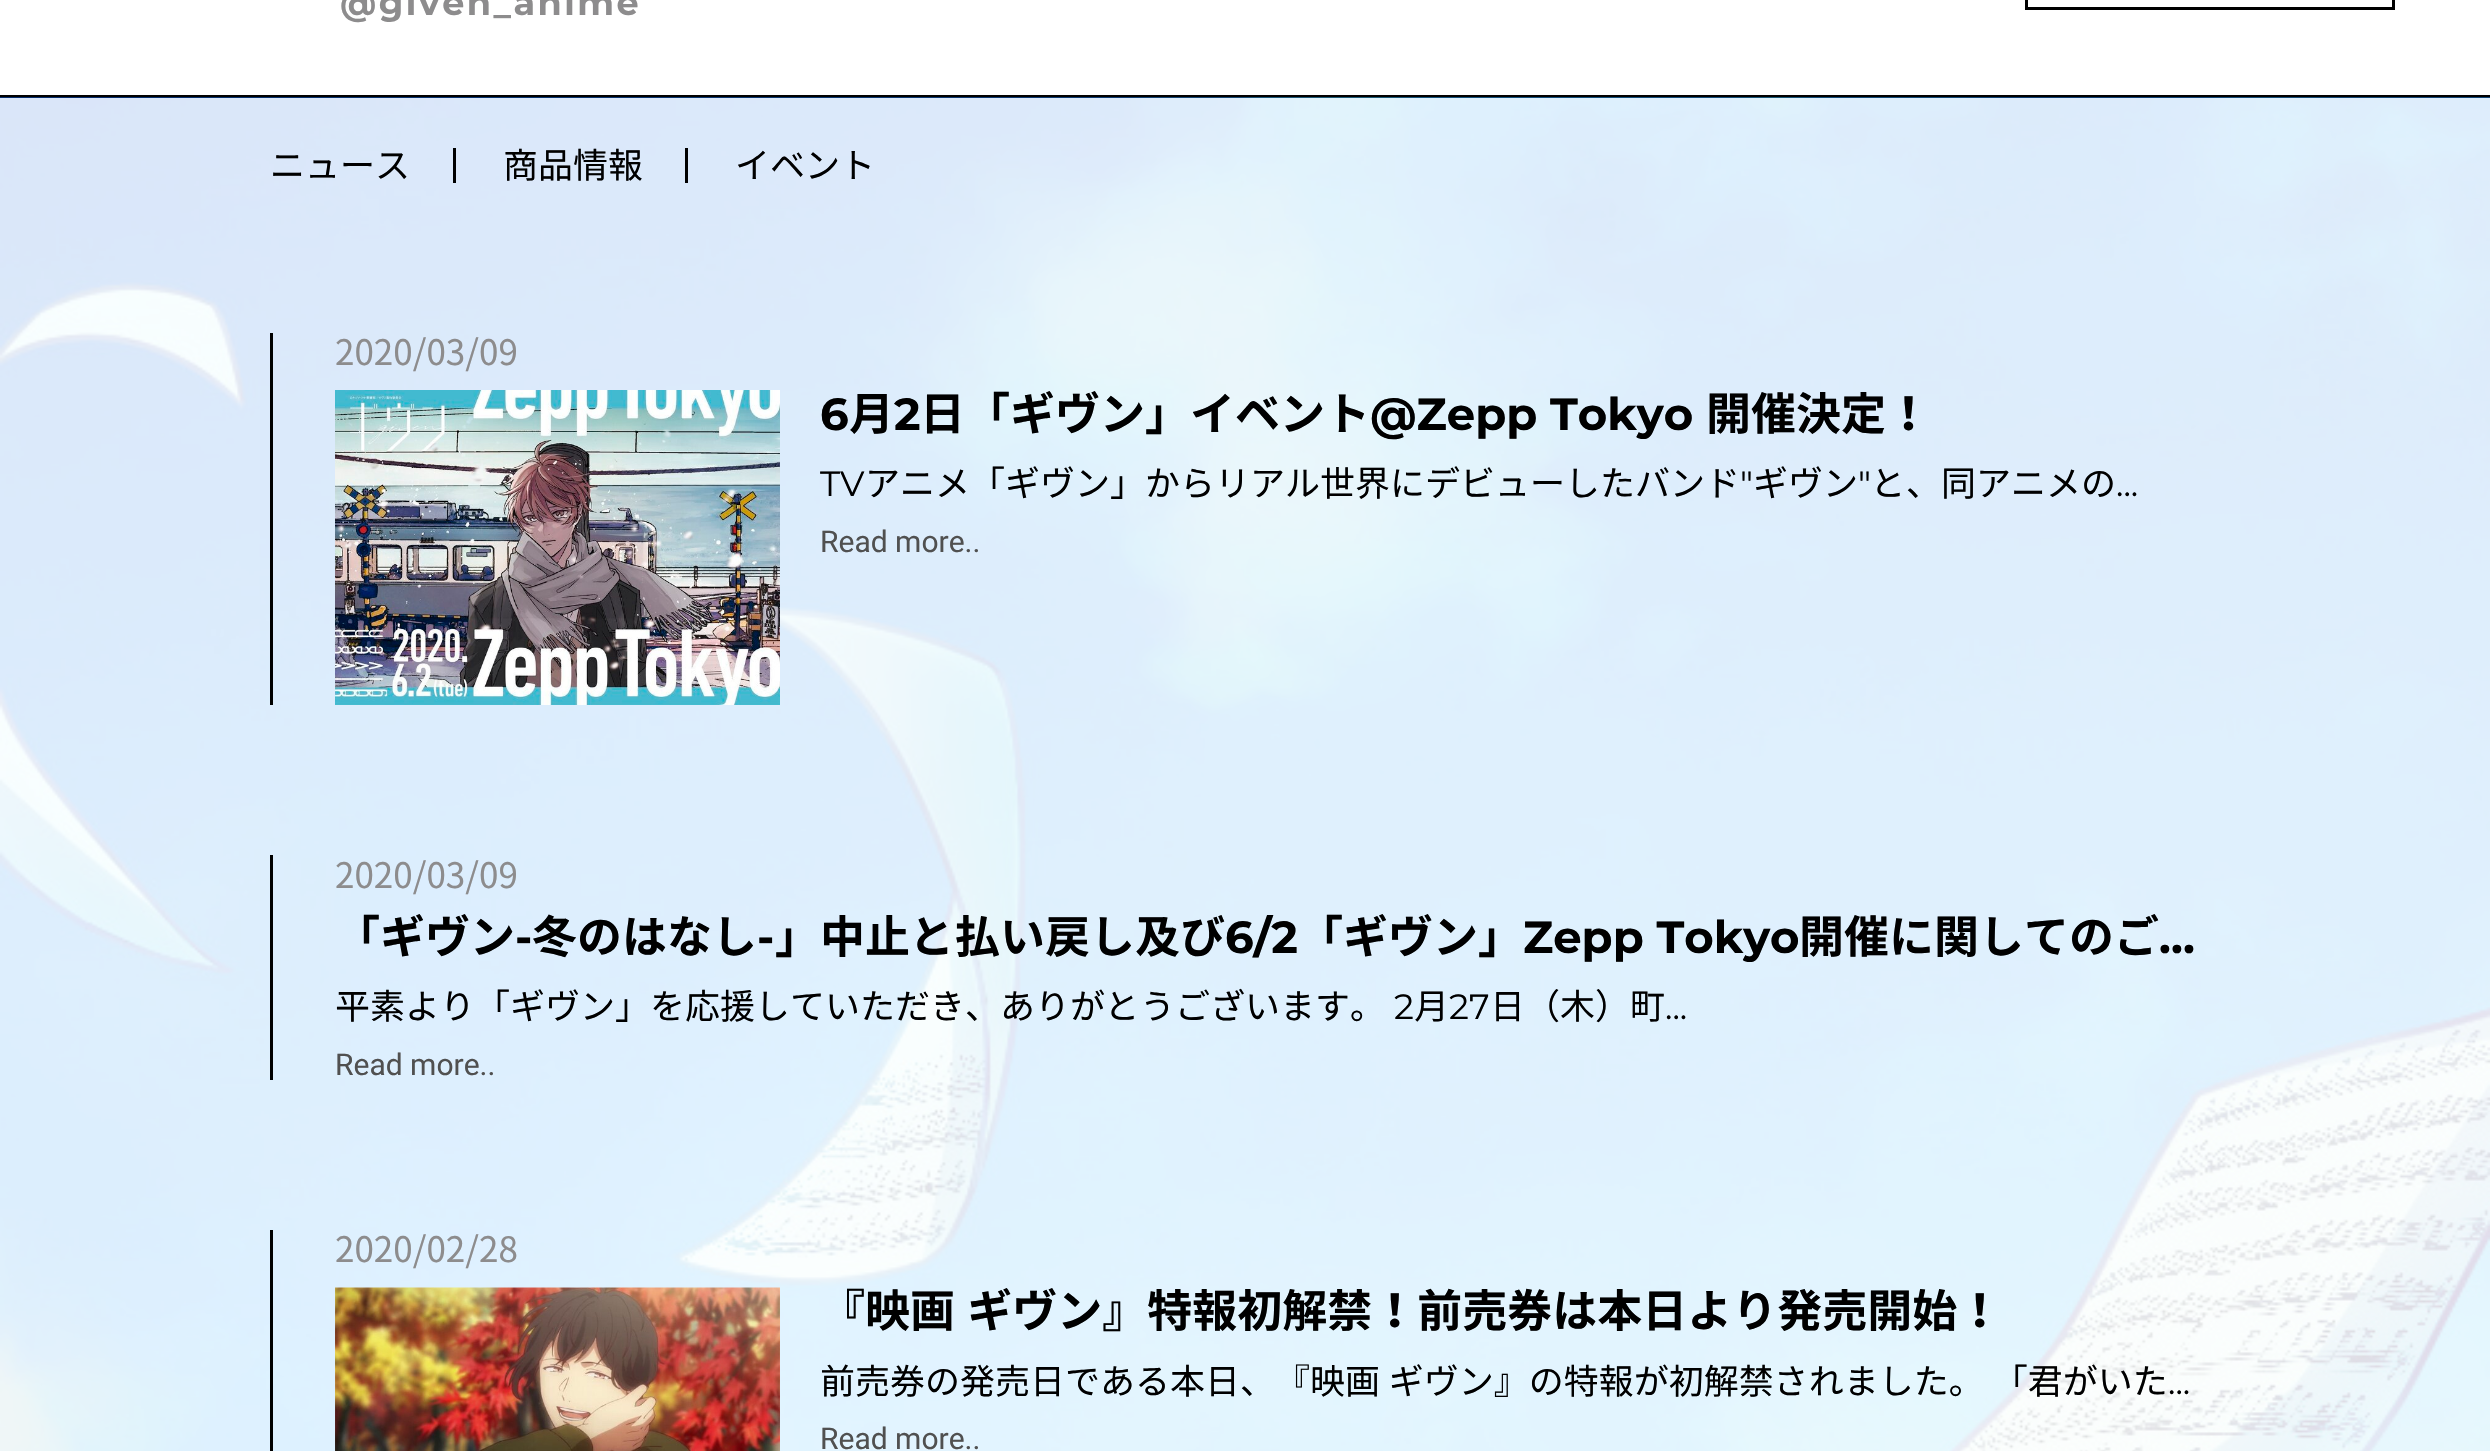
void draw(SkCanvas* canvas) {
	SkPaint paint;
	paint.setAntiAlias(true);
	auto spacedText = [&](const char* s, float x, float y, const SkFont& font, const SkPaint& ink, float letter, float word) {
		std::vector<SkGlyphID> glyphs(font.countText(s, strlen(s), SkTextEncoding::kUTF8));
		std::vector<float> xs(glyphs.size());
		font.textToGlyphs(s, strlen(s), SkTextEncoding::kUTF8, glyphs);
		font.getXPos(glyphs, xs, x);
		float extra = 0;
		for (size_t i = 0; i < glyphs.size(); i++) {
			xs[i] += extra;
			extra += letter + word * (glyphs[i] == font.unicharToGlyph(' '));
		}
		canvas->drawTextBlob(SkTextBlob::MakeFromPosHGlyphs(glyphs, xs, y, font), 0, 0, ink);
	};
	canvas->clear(0xffffffff);
	paint.setColor(0xff000000);
	canvas->drawRect(SkRect::MakeXYWH(0, 95, 2490, 3), paint);
	SkFont f1(fontMgr->matchFamilyStyle("Montserrat", SkFontStyle::Bold()), 35);
	f1.setSubpixel(true);
	paint.setColor(0xff8d8c8d);
	spacedText("@given_anime", 340, 15, f1, paint, 2.5, 0);
	paint.setStroke(true);
	paint.setStrokeWidth(3);
	paint.setColor(0xff000000);
	canvas->drawRect(SkRect::MakeXYWH(2026.5, -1.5, 367, 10), paint);
	canvas->drawImageRect(SkImages::DeferredFromEncodedData(SkData::MakeFromFileName("img1.png")), SkRect::MakeXYWH(0, 97, 2490, 1354), SkSamplingOptions());
	SkFont f2(fontMgr->matchFamilyStyle("Noto Sans JP", SkFontStyle::Normal()), 35);
	f2.setSubpixel(true);
	paint.setStroke(false);
	canvas->drawString("ニュース", 270, 178, f2, paint);
	canvas->drawRect(SkRect::MakeXYWH(453, 148, 3, 35), paint);
	canvas->drawString("商品情報", 503, 178, f2, paint);
	canvas->drawRect(SkRect::MakeXYWH(685, 148, 3, 35), paint);
	canvas->drawString("イベント", 735, 178, f2, paint);
	canvas->drawRect(SkRect::MakeXYWH(270, 333, 3, 372), paint);
	paint.setColor(0xff8d8c8d);
	canvas->drawString("2020/03/09", 335, 365, f2, paint);
	canvas->drawImageRect(SkImages::DeferredFromEncodedData(SkData::MakeFromFileName("img2.png")), SkRect::MakeXYWH(335, 390, 445, 315), SkSamplingOptions());
	SkFont f3(fontMgr->matchFamilyStyle("Montserrat", SkFontStyle::Bold()), 45);
	f3.setSubpixel(true);
	paint.setColor(0xff000000);
	canvas->drawString("6", 820, 430, f3, paint);
	SkFont f4(fontMgr->matchFamilyStyle("Noto Sans JP", SkFontStyle::Bold()), 45);
	f4.setSubpixel(true);
	canvas->drawString("月", 849, 430, f4, paint);
	canvas->drawString("2", 894, 430, f3, paint);
	canvas->drawString("日「ギヴン」イベント", 920, 430, f4, paint);
	canvas->drawString("@Zepp Tokyo", 1370, 430, f3, paint);
	canvas->drawString("開催決定！", 1706, 430, f4, paint);
	SkFont f5(fontMgr->matchFamilyStyle("Montserrat", SkFontStyle::Normal()), 35);
	f5.setSubpixel(true);
	canvas->drawString("TV", 820, 496, f5, paint);
	canvas->drawString("アニメ「ギヴン」からリアル世界にデビューしたバンド", 865, 496, f2, paint);
	canvas->drawString("\"", 1740, 496, f5, paint);
	canvas->drawString("ギヴン", 1753, 496, f2, paint);
	canvas->drawString("\"", 1858, 496, f5, paint);
	canvas->drawString("と、同アニメの", 1871, 496, f2, paint);
	canvas->drawString("...", 2116, 496, f5, paint);
	SkFont f6(fontMgr->matchFamilyStyle("Roboto", SkFontStyle::Normal()), 30);
	f6.setSubpixel(true);
	paint.setColor(0xff505050);
	canvas->drawString("Read more..", 820, 552, f6, paint);
	paint.setColor(0xff000000);
	canvas->drawRect(SkRect::MakeXYWH(270, 855, 3, 225), paint);
	paint.setColor(0xff8d8c8d);
	canvas->drawString("2020/03/09", 335, 888, f2, paint);
	paint.setColor(0xff000000);
	canvas->drawString("「ギヴン", 335, 953, f4, paint);
	canvas->drawString("-", 515, 953, f3, paint);
	canvas->drawString("冬のはなし", 532, 953, f4, paint);
	canvas->drawString("-", 757, 953, f3, paint);
	canvas->drawString("」中止と払い戻し及び", 775, 953, f4, paint);
	canvas->drawString("6/2", 1225, 953, f3, paint);
	canvas->drawString("「ギヴン」", 1298, 953, f4, paint);
	canvas->drawString("Zepp Tokyo", 1523, 953, f3, paint);
	canvas->drawString("開催に関してのご", 1799, 953, f4, paint);
	canvas->drawString("…", 2159, 953, f3, paint);
	canvas->drawString("平素より「ギヴン」を応援していただき、ありがとうございます。", 335, 1019, f2, paint);
	canvas->drawString("2", 1394, 1019, f5, paint);
	canvas->drawString("月", 1414, 1019, f2, paint);
	canvas->drawString("27", 1449, 1019, f5, paint);
	canvas->drawString("日（木）町", 1490, 1019, f2, paint);
	canvas->drawString("...", 1665, 1019, f5, paint);
	paint.setColor(0xff505050);
	canvas->drawString("Read more..", 335, 1075, f6, paint);
	paint.setColor(0xff000000);
	canvas->drawRect(SkRect::MakeXYWH(270, 1230, 3, 221), paint);
	paint.setColor(0xff8d8c8d);
	canvas->drawString("2020/02/28", 335, 1262, f2, paint);
	canvas->drawImageRect(SkImages::DeferredFromEncodedData(SkData::MakeFromFileName("img3.png")), SkRect::MakeXYWH(335, 1287, 445, 164), SkSamplingOptions());
	paint.setColor(0xff000000);
	spacedText("『映画 ギヴン』特報初解禁！前売券は本日より発売開始！", 820, 1327, f4, paint, 0, 2);
	spacedText("前売券の発売日である本日、『映画 ギヴン』の特報が初解禁されました。 「君がいた", 820, 1394, f2, paint, 0, 1);
	canvas->drawString("...", 2168, 1394, f5, paint);
	paint.setColor(0xff505050);
	canvas->drawString("Read more..", 820, 1449, f6, paint);
}
